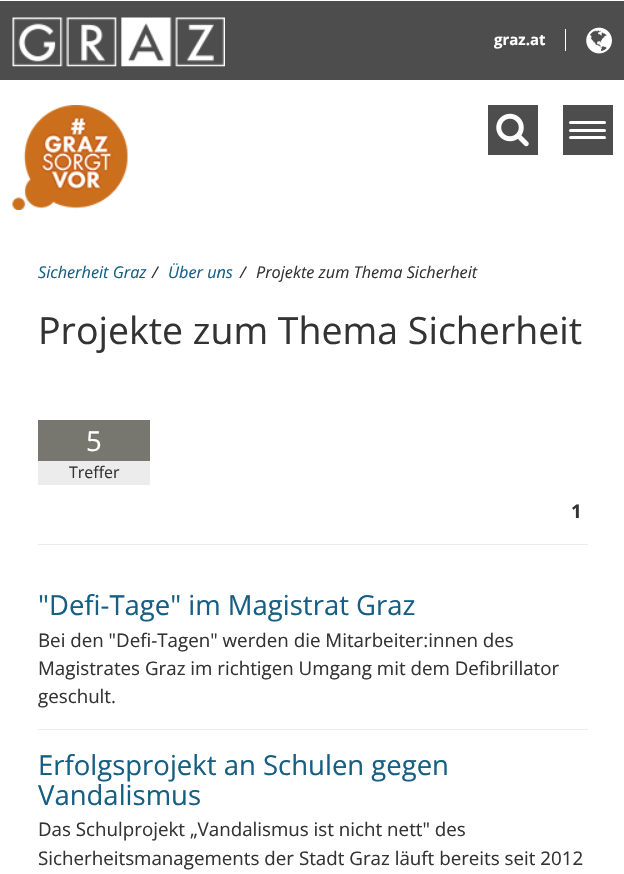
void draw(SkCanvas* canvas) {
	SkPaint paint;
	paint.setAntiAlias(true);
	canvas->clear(0xffffffff);
	paint.setColor(0xff4d4d4d);
	canvas->drawRect(SkRect::MakeXYWH(0, 1, 624, 79), paint);
	canvas->drawImageRect(SkImages::DeferredFromEncodedData(SkData::MakeFromFileName("img1.png")), SkRect::MakeXYWH(12, 17, 213, 50), SkSamplingOptions());
	paint.setColor(0xffffffff);
	canvas->drawRect(SkRect::MakeXYWH(565, 29, 1, 22), paint);
	SkFont f1(fontMgr->matchFamilyStyle("Open Sans", SkFontStyle::Bold()), 15);
	f1.setSubpixel(true);
	canvas->drawString("graz.at", 494, 45, f1, paint);
	canvas->drawImageRect(SkImages::DeferredFromEncodedData(SkData::MakeFromFileName("img2.png")), SkRect::MakeXYWH(586, 27, 26, 27), SkSamplingOptions());
	canvas->drawImageRect(SkImages::DeferredFromEncodedData(SkData::MakeFromFileName("img3.png")), SkRect::MakeXYWH(12, 105, 116, 105), SkSamplingOptions());
	paint.setColor(0xff4d4d4d);
	canvas->drawRect(SkRect::MakeXYWH(488, 105, 50, 50), paint);
	canvas->drawImageRect(SkImages::DeferredFromEncodedData(SkData::MakeFromFileName("img4.png")), SkRect::MakeXYWH(496, 113, 33, 34), SkSamplingOptions());
	canvas->drawRect(SkRect::MakeXYWH(563, 105, 50, 50), paint);
	paint.setColor(0xffffffff);
	canvas->drawRoundRect(SkRect::MakeXYWH(569, 121, 37, 3), 1.5, 1.5, paint);
	canvas->drawRoundRect(SkRect::MakeXYWH(569, 129, 37, 3), 1.5, 1.5, paint);
	canvas->drawRoundRect(SkRect::MakeXYWH(569, 136, 37, 3), 1.5, 1.5, paint);
	SkFont f2(fontMgr->matchFamilyStyle("Open Sans", SkFontStyle::Italic()), 16.25);
	f2.setSubpixel(true);
	paint.setColor(0xff165f83);
	canvas->drawString("Sicherheit Graz", 38, 278, f2, paint);
	paint.setColor(0xff333333);
	canvas->drawString("/", 152, 278, f2, paint);
	paint.setColor(0xff165f83);
	canvas->drawString("Über uns", 168, 278, f2, paint);
	paint.setColor(0xff333333);
	canvas->drawString("/", 240, 278, f2, paint);
	canvas->drawString("Projekte zum Thema Sicherheit", 256, 278, f2, paint);
	SkFont f3(fontMgr->matchFamilyStyle("Open Sans", SkFontStyle::Normal()), 37.5);
	f3.setSubpixel(true);
	canvas->drawString("Projekte zum Thema Sicherheit", 38, 344, f3, paint);
	paint.setColor(0xffececec);
	canvas->drawRect(SkRect::MakeXYWH(38, 544, 550, 1), paint);
	paint.setColor(0xff777770);
	canvas->drawRect(SkRect::MakeXYWH(38, 420, 112, 41), paint);
	SkFont f4(fontMgr->matchFamilyStyle("Open Sans", SkFontStyle::Normal()), 27.5);
	f4.setSubpixel(true);
	paint.setColor(0xffffffff);
	canvas->drawString("5", 86, 451, f4, paint);
	paint.setColor(0xffececec);
	canvas->drawRect(SkRect::MakeXYWH(38, 461, 112, 24), paint);
	SkFont f5(fontMgr->matchFamilyStyle("Open Sans", SkFontStyle::Normal()), 16);
	f5.setSubpixel(true);
	paint.setColor(0xff333333);
	canvas->drawString("Treffer", 69, 478, f5, paint);
	SkFont f6(fontMgr->matchFamilyStyle("Open Sans", SkFontStyle::Bold()), 18.75);
	f6.setSubpixel(true);
	canvas->drawString("1", 571, 518, f6, paint);
	paint.setColor(0xffececec);
	canvas->drawRect(SkRect::MakeXYWH(38, 729, 550, 1), paint);
	paint.setColor(0xff165f83);
	canvas->drawString("\"Defi-Tage\" im Magistrat Graz", 38, 615, f4, paint);
	SkFont f7(fontMgr->matchFamilyStyle("Open Sans", SkFontStyle::Normal()), 18.75);
	f7.setSubpixel(true);
	paint.setColor(0xff333333);
	canvas->drawString("Bei den \"Defi-Tagen\" werden die Mitarbeiter:innen des", 38, 647, f7, paint);
	canvas->drawString("Magistrates Graz im richtigen Umgang mit dem Defibrillator", 38, 675, f7, paint);
	canvas->drawString("geschult.", 38, 703, f7, paint);
	paint.setColor(0xff165f83);
	canvas->drawString("Erfolgsprojekt an Schulen gegen", 38, 775, f4, paint);
	canvas->drawString("Vandalismus", 38, 805, f4, paint);
	paint.setColor(0xff333333);
	canvas->drawString("Das Schulprojekt „Vandalismus ist nicht nett\" des", 38, 836, f7, paint);
	canvas->drawString("Sicherheitsmanagements der Stadt Graz läuft bereits seit 2012", 38, 865, f7, paint);
}
